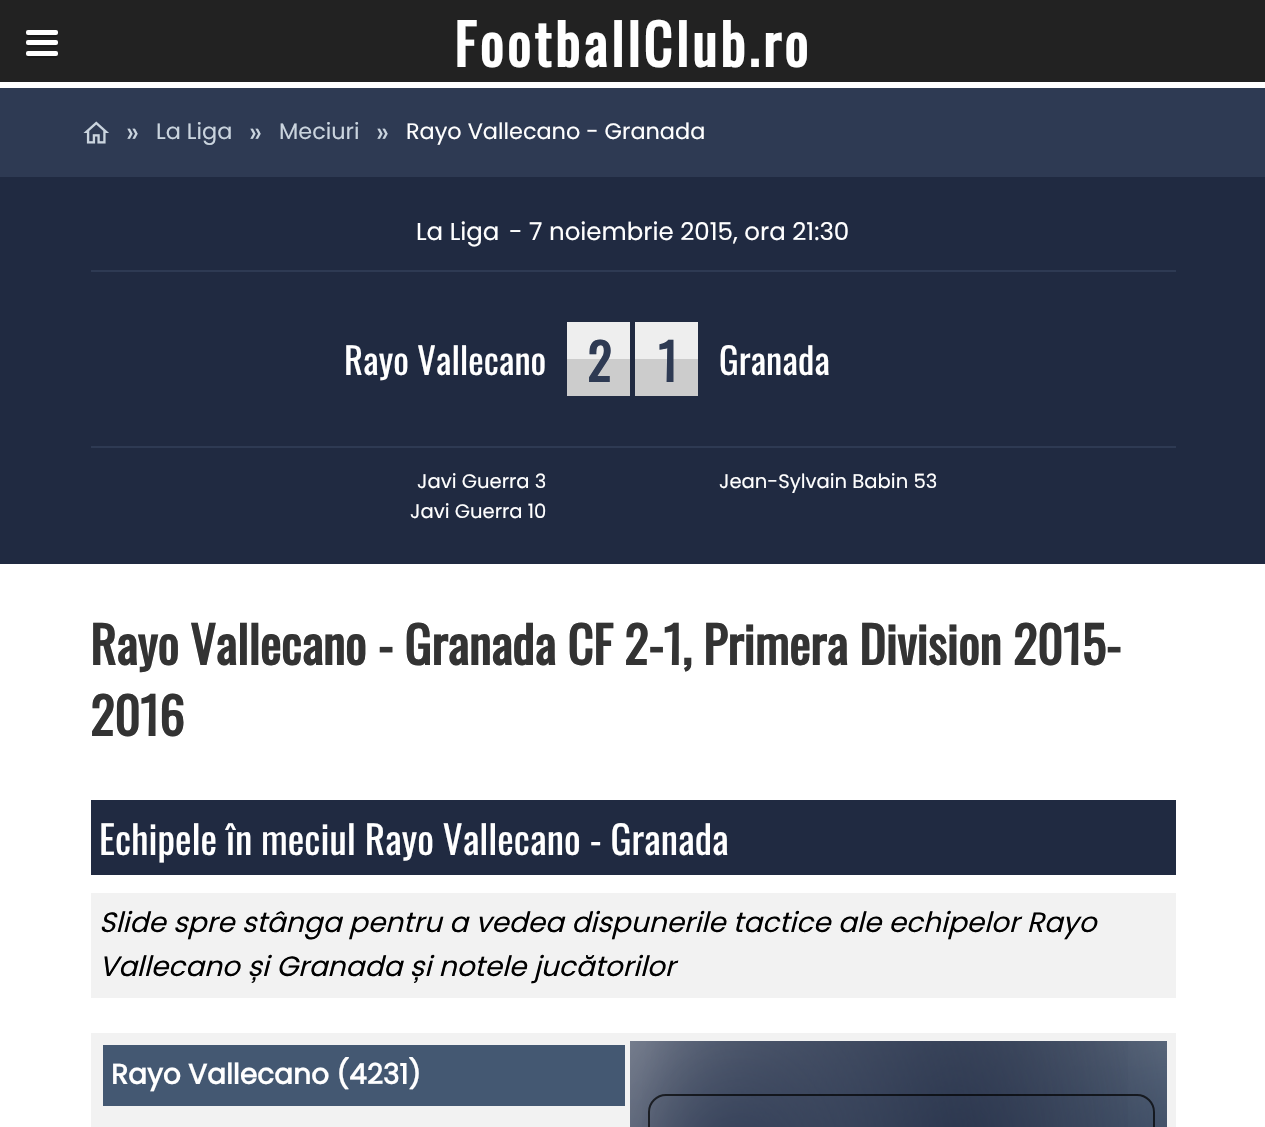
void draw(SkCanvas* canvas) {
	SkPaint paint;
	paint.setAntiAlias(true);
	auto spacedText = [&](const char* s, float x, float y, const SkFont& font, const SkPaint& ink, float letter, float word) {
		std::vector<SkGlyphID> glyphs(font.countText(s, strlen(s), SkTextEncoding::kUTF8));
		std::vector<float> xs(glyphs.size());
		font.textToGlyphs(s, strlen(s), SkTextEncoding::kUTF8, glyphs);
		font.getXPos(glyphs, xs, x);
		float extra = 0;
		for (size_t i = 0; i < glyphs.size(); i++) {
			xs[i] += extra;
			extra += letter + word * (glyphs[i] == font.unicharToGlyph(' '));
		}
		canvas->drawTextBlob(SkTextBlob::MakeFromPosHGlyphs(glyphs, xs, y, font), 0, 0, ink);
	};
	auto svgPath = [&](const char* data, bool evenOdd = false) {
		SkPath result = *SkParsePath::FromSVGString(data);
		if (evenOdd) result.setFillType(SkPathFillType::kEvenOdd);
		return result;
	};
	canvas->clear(0xffffffff);
	paint.setColor(0xff222222);
	canvas->drawRect(SkRect::MakeXYWH(0, 0, 1265, 82), paint);
	paint.setColor(0xff1a1a1a);
	canvas->drawPath(svgPath("M26 33V35C26 38 31.5 37 32.5 37H51.5C52.5 37 58 38 58 35V33C58 36 53 35 51.5 35H32.5C31 35 26 36 26 33Z"), paint);
	paint.setColor(0xffffffff);
	canvas->drawRoundRect(SkRect::MakeXYWH(26, 30, 32, 5), 2, 2, paint);
	paint.setColor(0xff1a1a1a);
	canvas->drawPath(svgPath("M26 43V45C26 48 31.5 47 32.5 47H51.5C52.5 47 58 48 58 45V43C58 46.5 54 45.5 51.5 45.5H32.5C30 45.5 26 46.5 26 43Z"), paint);
	paint.setColor(0xffffffff);
	canvas->drawRoundRect(SkRect::MakeXYWH(26, 40, 32, 5), 2, 2, paint);
	paint.setColor(0xff1a1a1a);
	canvas->drawPath(svgPath("M26 54V56C26 59 31.5 58 32.5 58H51.5C52.5 58 58 59 58 56V54C58 57 53 56 51.5 56H32.5C31 56 26 57 26 54Z"), paint);
	paint.setColor(0xffffffff);
	canvas->drawRoundRect(SkRect::MakeXYWH(26, 51, 32, 5), 2, 2, paint);
	SkFont f1(fontMgr->matchFamilyStyle("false", SkFontStyle::Bold()), 56);
	f1.setSubpixel(true);
	spacedText("FootballClub.ro", 454, 67, f1, paint, 3.5, 0);
	paint.setColor(0xff2e3a53);
	canvas->drawRect(SkRect::MakeXYWH(0, 88, 1265, 89), paint);
	canvas->drawImageRect(SkImages::DeferredFromEncodedData(SkData::MakeFromFileName("img1.png")), SkRect::MakeXYWH(83, 121, 26, 23), SkSamplingOptions());
	SkFont f2(fontMgr->matchFamilyStyle("Poppins", SkFontStyle::Normal()), 28);
	f2.setSubpixel(true);
	paint.setColor(0xffcad4de);
	canvas->drawString("»", 126, 142, f2, paint);
	SkFont f3(fontMgr->matchFamilyStyle("Poppins", SkFontStyle::Normal()), 22.4);
	f3.setSubpixel(true);
	canvas->drawString("La Liga", 156, 139, f3, paint);
	canvas->drawString("»", 249, 142, f2, paint);
	canvas->drawString("Meciuri", 279, 139, f3, paint);
	canvas->drawString("»", 376, 142, f2, paint);
	paint.setColor(0xffffffff);
	canvas->drawString("Rayo Vallecano - Granada", 406, 139, f3, paint);
	paint.setColor(0xff202a41);
	canvas->drawRect(SkRect::MakeXYWH(0, 177, 1265, 387), paint);
	SkFont f4(fontMgr->matchFamilyStyle("Poppins", SkFontStyle::Normal()), 24.5);
	f4.setSubpixel(true);
	paint.setColor(0xffffffff);
	canvas->drawString("La Liga", 416, 240, f4, paint);
	canvas->drawString("- 7 noiembrie 2015, ora 21:30", 509, 240, f4, paint);
	paint.setColor(0xff2e3a53);
	canvas->drawRect(SkRect::MakeXYWH(91, 270, 1085, 2), paint);
	canvas->drawRect(SkRect::MakeXYWH(91, 446, 1085, 2), paint);
	SkFont f5(fontMgr->matchFamilyStyle("false", SkFontStyle::Normal()), 36.75);
	f5.setSubpixel(true);
	paint.setColor(0xffffffff);
	canvas->drawString("Rayo Vallecano", 344, 375, f5, paint);
	paint.setColor(0xffeeeeee);
	canvas->drawRect(SkRect::MakeXYWH(567, 322, 63, 37), paint);
	paint.setColor(0xffcccccc);
	canvas->drawRect(SkRect::MakeXYWH(567, 359, 63, 37), paint);
	SkFont f6(fontMgr->matchFamilyStyle("false", SkFontStyle::Bold()), 50.4);
	f6.setSubpixel(true);
	paint.setColor(0xff2e3a53);
	spacedText("2", 587, 382, f6, paint, -2, 0);
	paint.setColor(0xffeeeeee);
	canvas->drawRect(SkRect::MakeXYWH(635, 322, 63, 37), paint);
	paint.setColor(0xffcccccc);
	canvas->drawRect(SkRect::MakeXYWH(635, 359, 63, 37), paint);
	paint.setColor(0xff2e3a53);
	spacedText("1", 658, 382, f6, paint, -2, 0);
	paint.setColor(0xffffffff);
	canvas->drawString("Granada", 719, 375, f5, paint);
	SkFont f7(fontMgr->matchFamilyStyle("Poppins", SkFontStyle::Normal()), 19.6);
	f7.setSubpixel(true);
	canvas->drawString("Javi Guerra 3", 417, 488, f7, paint);
	canvas->drawString("Javi Guerra 10", 410, 518, f7, paint);
	canvas->drawString("Jean-Sylvain Babin 53", 719, 488, f7, paint);
	paint.setColor(0xff333333);
	spacedText("Rayo Vallecano - Granada CF 2-1, Primera Division 2015-", 90, 665, f6, paint, -0.08, 0);
	spacedText("2016", 90, 736, f6, paint, -0.08, 0);
	paint.setColor(0xff202a41);
	canvas->drawRect(SkRect::MakeXYWH(91, 800, 1085, 75), paint);
	SkFont f8(fontMgr->matchFamilyStyle("false", SkFontStyle::Normal()), 39.25);
	f8.setSubpixel(true);
	paint.setColor(0xffffffff);
	canvas->drawString("Echipele în meciul Rayo Vallecano - Granada", 99, 855, f8, paint);
	paint.setColor(0xfff2f2f2);
	canvas->drawRect(SkRect::MakeXYWH(91, 893, 1085, 105), paint);
	SkFont f9(fontMgr->matchFamilyStyle("Poppins", SkFontStyle::Italic()), 28);
	f9.setSubpixel(true);
	paint.setColor(0xff000000);
	canvas->drawString("Slide spre stânga pentru a vedea dispunerile tactice ale echipelor Rayo", 99, 932, f9, paint);
	canvas->drawString("Vallecano și Granada și notele jucătorilor", 99, 976, f9, paint);
	paint.setColor(0xfff2f2f2);
	canvas->drawRect(SkRect::MakeXYWH(91, 1033, 1085, 94), paint);
	paint.setColor(0xff445872);
	canvas->drawRect(SkRect::MakeXYWH(103, 1045, 522, 61), paint);
	SkFont f10(fontMgr->matchFamilyStyle("Poppins", SkFontStyle::Bold()), 28);
	f10.setSubpixel(true);
	paint.setColor(0xffffffff);
	canvas->drawString("Rayo Vallecano (4231)", 111, 1084, f10, paint);
	{
		const SkColor colors[] = {0xff202a41, 0xfff2f2f2};
		const float stops[] = {0, 0.7};
		SkMatrix m = SkMatrix::Translate(739, 1817).preScale(614, 1096);
		paint.setShader(SkGradientShader::MakeRadial({0, 0}, 1, colors, stops, 2, SkTileMode::kClamp, 0, &m));
		paint.setAlpha(255);
	}
	canvas->drawRect(SkRect::MakeXYWH(630, 1059, 284, 68), paint);
	{
		const SkColor colors[] = {0xff2e3a53, 0x002e3a53};
		const float stops[] = {0, 0.7};
		SkMatrix m = SkMatrix::Translate(1173, 1817).preScale(767, 1096);
		paint.setShader(SkGradientShader::MakeRadial({0, 0}, 1, colors, stops, 2, SkTileMode::kClamp, 0, &m));
		paint.setAlpha(255);
	}
	canvas->drawRect(SkRect::MakeXYWH(967, 1066, 200, 61), paint);
	{
		const SkColor colors[] = {0xff445872, 0x00445872};
		const float stops[] = {0, 0.7};
		SkMatrix m = SkMatrix::Translate(1173, 1196).preScale(767, 877);
		paint.setShader(SkGradientShader::MakeRadial({0, 0}, 1, colors, stops, 2, SkTileMode::kClamp, 0, &m));
		paint.setAlpha(255);
	}
	canvas->drawRect(SkRect::MakeXYWH(650, 1041, 517, 86), paint);
	{
		const SkColor colors[] = {0xff202a41, 0x00202a41};
		const float stops[] = {0, 0.7};
		SkMatrix m = SkMatrix::Translate(956, 1196).preScale(460, 877);
		paint.setShader(SkGradientShader::MakeRadial({0, 0}, 1, colors, stops, 2, SkTileMode::kClamp, 0, &m));
		paint.setAlpha(255);
	}
	canvas->drawRect(SkRect::MakeXYWH(642, 1041, 525, 86), paint);
	{
		const SkColor colors[] = {0xff2e3a53, 0x002e3a53};
		const float stops[] = {0, 0.7};
		SkMatrix m = SkMatrix::Translate(739, 1196).preScale(614, 877);
		paint.setShader(SkGradientShader::MakeRadial({0, 0}, 1, colors, stops, 2, SkTileMode::kClamp, 0, &m));
		paint.setAlpha(255);
	}
	canvas->drawRect(SkRect::MakeXYWH(630, 1041, 498, 86), paint);
	paint.setStroke(true);
	paint.setStrokeWidth(2);
	paint.setShader(nullptr);
	paint.setColor(0xb3000000);
	canvas->drawRoundRect(SkRect::MakeXYWH(649, 1095, 505, 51), 17, 17, paint);
}
